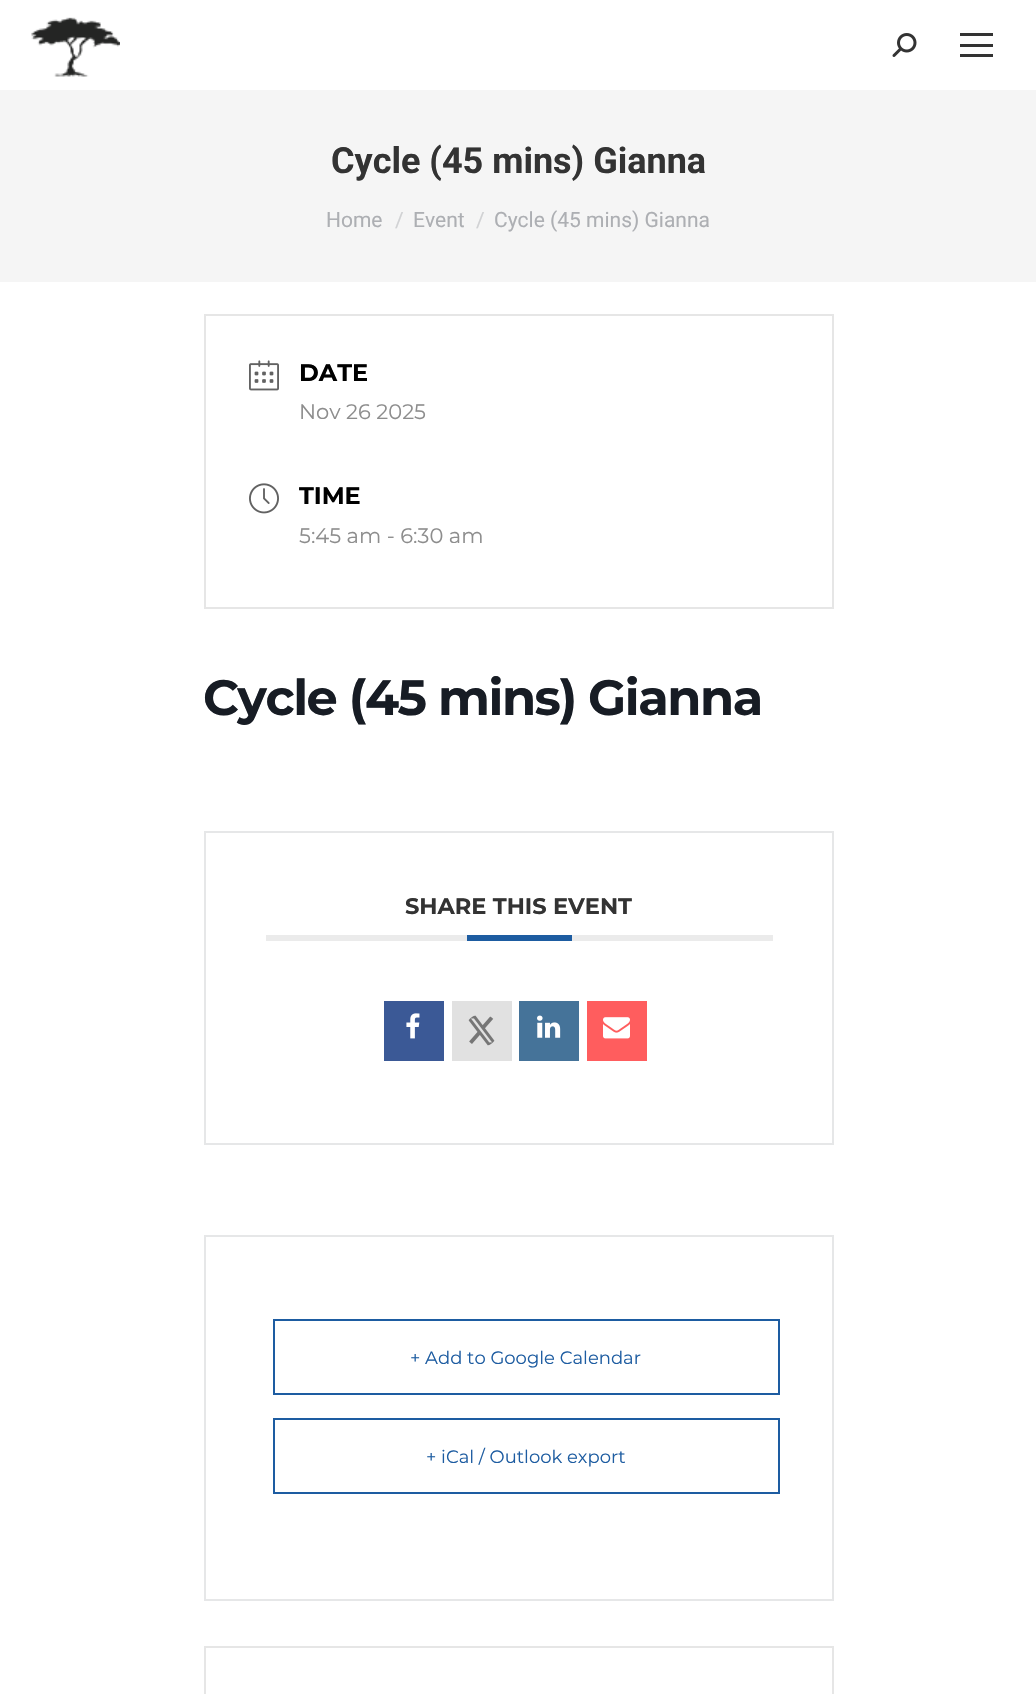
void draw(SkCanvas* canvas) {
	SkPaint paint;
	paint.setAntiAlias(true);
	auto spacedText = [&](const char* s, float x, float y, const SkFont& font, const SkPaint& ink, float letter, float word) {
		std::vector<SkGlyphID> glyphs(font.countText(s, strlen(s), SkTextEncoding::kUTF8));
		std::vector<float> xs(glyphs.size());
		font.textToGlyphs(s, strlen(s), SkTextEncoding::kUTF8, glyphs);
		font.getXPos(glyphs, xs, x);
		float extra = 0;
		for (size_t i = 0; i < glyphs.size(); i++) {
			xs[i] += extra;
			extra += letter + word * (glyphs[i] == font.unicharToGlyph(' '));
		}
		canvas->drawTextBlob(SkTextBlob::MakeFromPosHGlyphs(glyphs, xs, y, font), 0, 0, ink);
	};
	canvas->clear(0xffffffff);
	canvas->drawImageRect(SkImages::DeferredFromEncodedData(SkData::MakeFromFileName("img1.png")), SkRect::MakeXYWH(31, 17, 89, 60), SkSamplingOptions());
	canvas->drawImageRect(SkImages::DeferredFromEncodedData(SkData::MakeFromFileName("img2.png")), SkRect::MakeXYWH(892, 33, 25, 24), SkSamplingOptions());
	paint.setColor(0xff333333);
	canvas->drawRect(SkRect::MakeXYWH(960, 33, 33, 3), paint);
	canvas->drawRect(SkRect::MakeXYWH(960, 44, 33, 3), paint);
	canvas->drawRect(SkRect::MakeXYWH(960, 54, 33, 3), paint);
	paint.setColor(0xfff5f5f5);
	canvas->drawRect(SkRect::MakeXYWH(0, 90, 1036, 192), paint);
	SkFont f1(fontMgr->matchFamilyStyle("Roboto", SkFontStyle::Bold()), 36);
	f1.setSubpixel(true);
	paint.setColor(0xff333333);
	canvas->drawString("Cycle (45 mins) Gianna", 331, 173, f1, paint);
	SkFont f2(fontMgr->matchFamilyStyle("Roboto", SkFontStyle::Normal()), 21);
	f2.setSubpixel(true);
	paint.setColor(0xffadafb3);
	canvas->drawString("Home", 326, 227, f2, paint);
	paint.setColor(0xffd1d2d4);
	canvas->drawString("/", 395, 227, f2, paint);
	paint.setColor(0xffadafb3);
	canvas->drawString("Event", 413, 227, f2, paint);
	paint.setColor(0xffd1d2d4);
	canvas->drawString("/", 476, 227, f2, paint);
	paint.setColor(0xffadafb3);
	canvas->drawString("Cycle (45 mins) Gianna", 494, 227, f2, paint);
	paint.setStroke(true);
	paint.setStrokeWidth(2);
	paint.setColor(0xffe6e6e6);
	canvas->drawRect(SkRect::MakeXYWH(205, 315, 628, 293), paint);
	canvas->drawImageRect(SkImages::DeferredFromEncodedData(SkData::MakeFromFileName("img3.png")), SkRect::MakeXYWH(249, 360, 30, 31), SkSamplingOptions());
	SkFont f3(fontMgr->matchFamilyStyle("Montserrat", SkFontStyle::Bold()), 24);
	f3.setSubpixel(true);
	paint.setStroke(false);
	paint.setColor(0xff000000);
	canvas->drawString("DATE", 299, 381, f3, paint);
	SkFont f4(fontMgr->matchFamilyStyle("Montserrat", SkFontStyle::Normal()), 21);
	f4.setSubpixel(true);
	paint.setColor(0xff8d8d8d);
	canvas->drawString("Nov 26 2025", 299, 419, f4, paint);
	canvas->drawImageRect(SkImages::DeferredFromEncodedData(SkData::MakeFromFileName("img4.png")), SkRect::MakeXYWH(249, 483, 30, 31), SkSamplingOptions());
	paint.setColor(0xff000000);
	canvas->drawString("TIME", 299, 504, f3, paint);
	paint.setColor(0xff8d8d8d);
	canvas->drawString("5:45 am - 6:30 am", 299, 543, f4, paint);
	SkFont f5(fontMgr->matchFamilyStyle("Montserrat", SkFontStyle::Bold()), 49.5);
	f5.setSubpixel(true);
	paint.setColor(0xff171c24);
	spacedText("Cycle (45 mins) Gianna", 203, 715, f5, paint, -1.5, 0);
	paint.setStroke(true);
	paint.setColor(0xffe6e7e8);
	canvas->drawRect(SkRect::MakeXYWH(205, 832, 628, 312), paint);
	paint.setStroke(false);
	paint.setColor(0xffebebeb);
	canvas->drawRect(SkRect::MakeXYWH(266, 935, 507, 6), paint);
	SkFont f6(fontMgr->matchFamilyStyle("Montserrat", SkFontStyle::Bold()), 22.5);
	f6.setSubpixel(true);
	paint.setColor(0xff333333);
	canvas->drawString("SHARE THIS EVENT", 405, 914, f6, paint);
	paint.setColor(0xff1d5ca1);
	canvas->drawRect(SkRect::MakeXYWH(467, 935, 105, 6), paint);
	paint.setColor(0xff3b5996);
	canvas->drawRect(SkRect::MakeXYWH(384, 1001, 60, 60), paint);
	canvas->drawImageRect(SkImages::DeferredFromEncodedData(SkData::MakeFromFileName("img5.png")), SkRect::MakeXYWH(406, 1013, 14, 26), SkSamplingOptions());
	paint.setColor(0xffe1e1e1);
	canvas->drawRect(SkRect::MakeXYWH(452, 1001, 60, 60), paint);
	canvas->drawImageRect(SkImages::DeferredFromEncodedData(SkData::MakeFromFileName("img6.png")), SkRect::MakeXYWH(468, 1015, 27, 31), SkSamplingOptions());
	paint.setColor(0xff457399);
	canvas->drawRect(SkRect::MakeXYWH(519, 1001, 60, 60), paint);
	canvas->drawImageRect(SkImages::DeferredFromEncodedData(SkData::MakeFromFileName("img7.png")), SkRect::MakeXYWH(537, 1015, 24, 23), SkSamplingOptions());
	paint.setColor(0xffff5d5e);
	canvas->drawRect(SkRect::MakeXYWH(587, 1001, 60, 60), paint);
	canvas->drawImageRect(SkImages::DeferredFromEncodedData(SkData::MakeFromFileName("img8.png")), SkRect::MakeXYWH(603, 1017, 27, 22), SkSamplingOptions());
	paint.setStroke(true);
	paint.setColor(0xffe6e7e8);
	canvas->drawRect(SkRect::MakeXYWH(205, 1236, 628, 364), paint);
	paint.setColor(0xff1d5ca1);
	canvas->drawRect(SkRect::MakeXYWH(274, 1320, 505, 74), paint);
	SkFont f7(fontMgr->matchFamilyStyle("Montserrat", SkFontStyle::Normal()), 18);
	f7.setSubpixel(true);
	paint.setStroke(false);
	canvas->drawString("+ Add to Google Calendar", 410, 1364, f7, paint);
	paint.setStroke(true);
	canvas->drawRect(SkRect::MakeXYWH(274, 1419, 505, 74), paint);
	paint.setStroke(false);
	canvas->drawString("+ iCal / Outlook export", 426, 1463, f7, paint);
	paint.setStroke(true);
	paint.setColor(0xffe6e6e6);
	canvas->drawRect(SkRect::MakeXYWH(205, 1647, 628, 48), paint);
}
